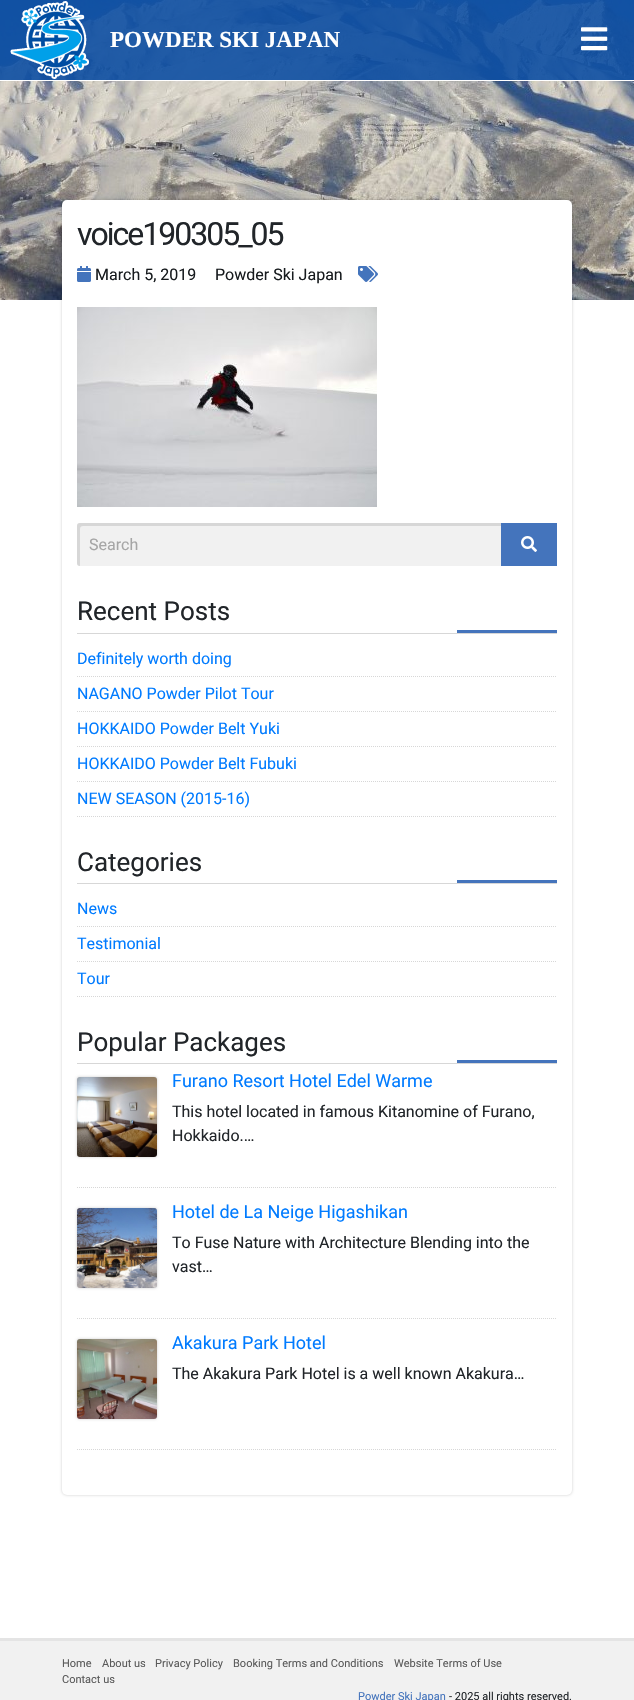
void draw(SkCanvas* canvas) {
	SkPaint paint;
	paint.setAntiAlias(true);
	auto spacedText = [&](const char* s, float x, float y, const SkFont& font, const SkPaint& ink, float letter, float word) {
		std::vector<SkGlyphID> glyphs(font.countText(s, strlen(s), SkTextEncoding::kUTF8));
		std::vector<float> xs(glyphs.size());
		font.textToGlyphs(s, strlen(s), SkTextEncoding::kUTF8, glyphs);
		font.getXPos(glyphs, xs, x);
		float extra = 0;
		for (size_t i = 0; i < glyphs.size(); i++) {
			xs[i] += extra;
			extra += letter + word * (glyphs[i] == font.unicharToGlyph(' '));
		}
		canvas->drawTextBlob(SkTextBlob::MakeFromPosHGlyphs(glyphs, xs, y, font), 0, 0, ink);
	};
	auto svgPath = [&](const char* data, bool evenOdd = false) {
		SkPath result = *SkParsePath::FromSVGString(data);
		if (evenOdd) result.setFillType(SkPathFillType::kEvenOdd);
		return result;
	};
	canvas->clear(0xffffffff);
	canvas->drawImageRect(SkImages::DeferredFromEncodedData(SkData::MakeFromFileName("img3.png")), SkRect::MakeXYWH(0, 0, 634, 300), SkSamplingOptions());
	paint.setColor(0xe60c4ea2);
	canvas->drawRect(SkRect::MakeXYWH(0, 0, 634, 80), paint);
	paint.setColor(0xffffffff);
	canvas->drawRect(SkRect::MakeXYWH(0, 80, 634, 1), paint);
	canvas->drawImageRect(SkImages::DeferredFromEncodedData(SkData::MakeFromFileName("img1.png")), SkRect::MakeXYWH(10, 1, 79, 78), SkSamplingOptions());
	SkFont f1(fontMgr->matchFamilyStyle("Liberation Serif", SkFontStyle::Bold()), 23);
	f1.setSubpixel(true);
	canvas->drawString("POWDER SKI JAPAN", 110, 47, f1, paint);
	canvas->drawImageRect(SkImages::DeferredFromEncodedData(SkData::MakeFromFileName("img2.png")), SkRect::MakeXYWH(581, 27, 27, 24), SkSamplingOptions());
	paint.setColor(0x33000000);
	paint.setMaskFilter(SkMaskFilter::MakeBlur(kNormal_SkBlurStyle, 1.5));
	canvas->drawRoundRect(SkRect::MakeXYWH(62, 200, 510, 1295), 5, 5, paint);
	paint.setMaskFilter(nullptr);
	paint.setColor(0xffffffff);
	canvas->drawRoundRect(SkRect::MakeXYWH(62, 200, 510, 1295), 5, 5, paint);
	SkFont f2(fontMgr->matchFamilyStyle("Roboto", SkFontStyle::Normal()), 32);
	f2.setSubpixel(true);
	paint.setColor(0xff212529);
	spacedText("voice190305_05", 77, 245, f2, paint, -2, 0);
	canvas->drawImageRect(SkImages::DeferredFromEncodedData(SkData::MakeFromFileName("img4.png")), SkRect::MakeXYWH(77, 266, 14, 16), SkSamplingOptions());
	SkFont f3(fontMgr->matchFamilyStyle("Roboto", SkFontStyle::Normal()), 16);
	f3.setSubpixel(true);
	paint.setColor(0xff171b1e);
	canvas->drawString("March 5, 2019", 95, 280, f3, paint);
	canvas->drawString("Powder Ski Japan", 215, 280, f3, paint);
	canvas->drawImageRect(SkImages::DeferredFromEncodedData(SkData::MakeFromFileName("img5.png")), SkRect::MakeXYWH(358, 266, 20, 16), SkSamplingOptions());
	canvas->drawImageRect(SkImages::DeferredFromEncodedData(SkData::MakeFromFileName("img6.png")), SkRect::MakeXYWH(77, 307, 300, 200), SkSamplingOptions());
	paint.setColor(0xfff1f1f1);
	canvas->drawRoundRect(SkRect::MakeXYWH(77, 523, 480, 43), 3, 3, paint);
	paint.setColor(0xffd7d7d7);
	canvas->drawPath(svgPath("M83 526H557C557 524 556 523 554 523H80C78 523 77 524 77 526V563C77 565 78 566 80 566V529C80 527 81 526 83 526Z"), paint);
	paint.setColor(0xffa6a6a6);
	canvas->drawString("Search", 89, 550, f3, paint);
	paint.setColor(0xff4474bc);
	canvas->drawRect(SkRect::MakeXYWH(501, 523, 56, 43), paint);
	canvas->drawImageRect(SkImages::DeferredFromEncodedData(SkData::MakeFromFileName("img7.png")), SkRect::MakeXYWH(521, 536, 16, 16), SkSamplingOptions());
	paint.setColor(0xffd7d7d7);
	canvas->drawRect(SkRect::MakeXYWH(77, 633, 480, 1), paint);
	SkFont f4(fontMgr->matchFamilyStyle("Roboto", SkFontStyle::Normal()), 26);
	f4.setSubpixel(true);
	paint.setColor(0xff212529);
	canvas->drawString("Recent Posts", 77, 620, f4, paint);
	paint.setColor(0xff4474bc);
	canvas->drawRect(SkRect::MakeXYWH(457, 630, 100, 3), paint);
	paint.setStroke(true);
	paint.setStrokeWidth(1);
	paint.setColor(0xffd7d7d7);
	paint.setPathEffect(SkDashPathEffect::Make({{1, 1}}, 0));
	canvas->drawPath(svgPath("M77 676.5H557"), paint);
	paint.setPathEffect(nullptr);
	paint.setStroke(false);
	paint.setColor(0xff007bff);
	canvas->drawString("Definitely worth doing", 77, 664, f3, paint);
	paint.setStroke(true);
	paint.setColor(0xffd7d7d7);
	paint.setPathEffect(SkDashPathEffect::Make({{1, 1}}, 0));
	canvas->drawPath(svgPath("M77 711.5H557"), paint);
	paint.setPathEffect(nullptr);
	paint.setStroke(false);
	paint.setColor(0xff007bff);
	canvas->drawString("NAGANO Powder Pilot Tour", 77, 699, f3, paint);
	paint.setStroke(true);
	paint.setColor(0xffd7d7d7);
	paint.setPathEffect(SkDashPathEffect::Make({{1, 1}}, 0));
	canvas->drawPath(svgPath("M77 746.5H557"), paint);
	paint.setPathEffect(nullptr);
	paint.setStroke(false);
	paint.setColor(0xff007bff);
	canvas->drawString("HOKKAIDO Powder Belt Yuki", 77, 734, f3, paint);
	paint.setStroke(true);
	paint.setColor(0xffd7d7d7);
	paint.setPathEffect(SkDashPathEffect::Make({{1, 1}}, 0));
	canvas->drawPath(svgPath("M77 781.5H557"), paint);
	paint.setPathEffect(nullptr);
	paint.setStroke(false);
	paint.setColor(0xff007bff);
	canvas->drawString("HOKKAIDO Powder Belt Fubuki", 77, 769, f3, paint);
	paint.setStroke(true);
	paint.setColor(0xffd7d7d7);
	paint.setPathEffect(SkDashPathEffect::Make({{1, 1}}, 0));
	canvas->drawPath(svgPath("M77 816.5H557"), paint);
	paint.setPathEffect(nullptr);
	paint.setStroke(false);
	paint.setColor(0xff007bff);
	canvas->drawString("NEW SEASON (2015-16)", 77, 804, f3, paint);
	paint.setColor(0xffd7d7d7);
	canvas->drawRect(SkRect::MakeXYWH(77, 883, 480, 1), paint);
	paint.setColor(0xff212529);
	canvas->drawString("Categories", 77, 871, f4, paint);
	paint.setColor(0xff4474bc);
	canvas->drawRect(SkRect::MakeXYWH(457, 880, 100, 3), paint);
	paint.setStroke(true);
	paint.setColor(0xffd7d7d7);
	paint.setPathEffect(SkDashPathEffect::Make({{1, 1}}, 0));
	canvas->drawPath(svgPath("M77 926.5H557"), paint);
	paint.setPathEffect(nullptr);
	paint.setStroke(false);
	paint.setColor(0xff007bff);
	canvas->drawString("News", 77, 914, f3, paint);
	paint.setStroke(true);
	paint.setColor(0xffd7d7d7);
	paint.setPathEffect(SkDashPathEffect::Make({{1, 1}}, 0));
	canvas->drawPath(svgPath("M77 961.5H557"), paint);
	paint.setPathEffect(nullptr);
	paint.setStroke(false);
	paint.setColor(0xff007bff);
	canvas->drawString("Testimonial", 77, 949, f3, paint);
	paint.setStroke(true);
	paint.setColor(0xffd7d7d7);
	paint.setPathEffect(SkDashPathEffect::Make({{1, 1}}, 0));
	canvas->drawPath(svgPath("M77 996.5H557"), paint);
	paint.setPathEffect(nullptr);
	paint.setStroke(false);
	paint.setColor(0xff007bff);
	canvas->drawString("Tour", 77, 984, f3, paint);
	paint.setColor(0xffd7d7d7);
	canvas->drawRect(SkRect::MakeXYWH(77, 1063, 480, 1), paint);
	paint.setColor(0xff212529);
	canvas->drawString("Popular Packages", 77, 1051, f4, paint);
	paint.setColor(0xff4474bc);
	canvas->drawRect(SkRect::MakeXYWH(457, 1060, 100, 3), paint);
	paint.setStroke(true);
	paint.setColor(0xffd7d7d7);
	paint.setPathEffect(SkDashPathEffect::Make({{1, 1}}, 0));
	canvas->drawPath(svgPath("M77 1187.5H557"), paint);
	paint.setPathEffect(nullptr);
	paint.setStroke(false);
	paint.setColor(0x33000000);
	paint.setMaskFilter(SkMaskFilter::MakeBlur(kNormal_SkBlurStyle, 1.5));
	canvas->drawRoundRect(SkRect::MakeXYWH(77, 1077, 80, 80), 3, 3, paint);
	paint.setMaskFilter(nullptr);
	canvas->drawImageRect(SkImages::DeferredFromEncodedData(SkData::MakeFromFileName("img8.png")), SkRect::MakeXYWH(77, 1077, 80, 80), SkSamplingOptions());
	SkFont f5(fontMgr->matchFamilyStyle("Roboto", SkFontStyle::Normal()), 18);
	f5.setSubpixel(true);
	paint.setColor(0xff007bff);
	canvas->drawString("Furano Resort Hotel Edel Warme", 172, 1087, f5, paint);
	paint.setColor(0xff212529);
	canvas->drawString("This hotel located in famous Kitanomine of Furano,", 172, 1117, f3, paint);
	canvas->drawString("Hokkaido.…", 172, 1141, f3, paint);
	paint.setStroke(true);
	paint.setColor(0xffd7d7d7);
	paint.setPathEffect(SkDashPathEffect::Make({{1, 1}}, 0));
	canvas->drawPath(svgPath("M77 1318.5H557"), paint);
	paint.setPathEffect(nullptr);
	paint.setStroke(false);
	paint.setColor(0x33000000);
	paint.setMaskFilter(SkMaskFilter::MakeBlur(kNormal_SkBlurStyle, 1.5));
	canvas->drawRoundRect(SkRect::MakeXYWH(77, 1208, 80, 80), 3, 3, paint);
	paint.setMaskFilter(nullptr);
	canvas->drawImageRect(SkImages::DeferredFromEncodedData(SkData::MakeFromFileName("img9.png")), SkRect::MakeXYWH(77, 1208, 80, 80), SkSamplingOptions());
	paint.setColor(0xff007bff);
	canvas->drawString("Hotel de La Neige Higashikan", 172, 1218, f5, paint);
	paint.setColor(0xff212529);
	canvas->drawString("To Fuse Nature with Architecture Blending into the", 172, 1248, f3, paint);
	canvas->drawString("vast…", 172, 1272, f3, paint);
	paint.setStroke(true);
	paint.setColor(0xffd7d7d7);
	paint.setPathEffect(SkDashPathEffect::Make({{1, 1}}, 0));
	canvas->drawPath(svgPath("M77 1449.5H557"), paint);
	paint.setPathEffect(nullptr);
	paint.setStroke(false);
	paint.setColor(0x33000000);
	paint.setMaskFilter(SkMaskFilter::MakeBlur(kNormal_SkBlurStyle, 1.5));
	canvas->drawRoundRect(SkRect::MakeXYWH(77, 1339, 80, 80), 3, 3, paint);
	paint.setMaskFilter(nullptr);
	canvas->drawImageRect(SkImages::DeferredFromEncodedData(SkData::MakeFromFileName("img10.png")), SkRect::MakeXYWH(77, 1339, 80, 80), SkSamplingOptions());
	paint.setColor(0xff007bff);
	canvas->drawString("Akakura Park Hotel", 172, 1349, f5, paint);
	paint.setColor(0xff212529);
	canvas->drawString("The Akakura Park Hotel is a well known Akakura…", 172, 1379, f3, paint);
	paint.setColor(0xffe4e4e4);
	canvas->drawRect(SkRect::MakeXYWH(0, 1638, 634, 3), paint);
	paint.setColor(0xfff1f1f1);
	canvas->drawRect(SkRect::MakeXYWH(0, 1641, 634, 59), paint);
	SkFont f6(fontMgr->matchFamilyStyle("Roboto", SkFontStyle::Normal()), 11);
	f6.setSubpixel(true);
	paint.setColor(0xff5a5a5a);
	canvas->drawString("Home", 62, 1667, f6, paint);
	canvas->drawString("About us", 102, 1667, f6, paint);
	canvas->drawString("Privacy Policy", 155, 1667, f6, paint);
	canvas->drawString("Booking Terms and Conditions", 233, 1667, f6, paint);
	canvas->drawString("Website Terms of Use", 394, 1667, f6, paint);
	canvas->drawString("Contact us", 62, 1683, f6, paint);
	paint.setColor(0xff4474bc);
	canvas->drawString("Powder Ski Japan", 358, 1700, f6, paint);
	paint.setColor(0xff212529);
	canvas->drawString("- 2025 all rights reserved.", 449, 1700, f6, paint);
}
